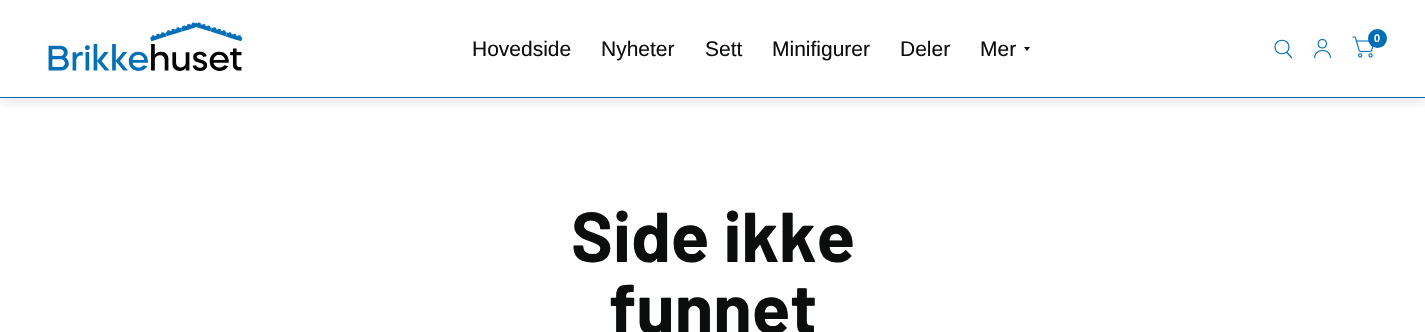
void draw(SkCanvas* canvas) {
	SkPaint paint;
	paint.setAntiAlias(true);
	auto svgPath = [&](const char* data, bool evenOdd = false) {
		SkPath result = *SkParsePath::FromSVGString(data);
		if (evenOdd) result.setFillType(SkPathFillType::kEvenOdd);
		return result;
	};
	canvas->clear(0xffffffff);
	paint.setColor(0xff006eb6);
	canvas->drawRect(SkRect::MakeXYWH(0, 97, 1425, 1), paint);
	canvas->save();
	canvas->clipRect(SkRect::MakeXYWH(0, 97, 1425, 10));
	paint.setColor(0x1a000000);
	paint.setMaskFilter(SkMaskFilter::MakeBlur(kNormal_SkBlurStyle, 6));
	canvas->drawRect(SkRect::MakeXYWH(0, 5, 1425, 97), paint);
	paint.setMaskFilter(nullptr);
	canvas->restore();
	canvas->drawImageRect(SkImages::DeferredFromEncodedData(SkData::MakeFromFileName("img1.png")), SkRect::MakeXYWH(48, 22, 195, 49), SkSamplingOptions());
	paint.setStroke(true);
	paint.setStrokeWidth(1.2);
	paint.setStrokeCap(SkPaint::kRound_Cap);
	paint.setStrokeJoin(SkPaint::kRound_Join);
	paint.setColor(0xff006eb6);
	canvas->drawPath(svgPath("M1287 52.5L1291.5 57.5M1289 47C1289 56 1275 56 1275 47C1275 38 1289 38 1289 47Z"), paint);
	canvas->drawImageRect(SkImages::DeferredFromEncodedData(SkData::MakeFromFileName("img2.png")), SkRect::MakeXYWH(1314, 38, 18, 21), SkSamplingOptions());
	canvas->drawImageRect(SkImages::DeferredFromEncodedData(SkData::MakeFromFileName("img3.png")), SkRect::MakeXYWH(1352, 36, 22, 22), SkSamplingOptions());
	paint.setStroke(false);
	canvas->drawCircle(1377.5, 38.5, 9.5, paint);
	SkFont f1(fontMgr->matchFamilyStyle("Liberation Sans", SkFontStyle::Bold()), 11);
	f1.setSubpixel(true);
	paint.setColor(0xffffffff);
	canvas->drawString("0", 1374, 42, f1, paint);
	SkFont f2(fontMgr->matchFamilyStyle("Liberation Sans", SkFontStyle::Normal()), 21);
	f2.setSubpixel(true);
	paint.setColor(0xff0c0d0d);
	canvas->drawString("Hovedside", 472, 56, f2, paint);
	canvas->drawString("Nyheter", 601, 56, f2, paint);
	canvas->drawString("Sett", 705, 56, f2, paint);
	canvas->drawString("Minifigurer", 772, 56, f2, paint);
	canvas->drawString("Deler", 900, 56, f2, paint);
	canvas->drawString("Mer", 980, 56, f2, paint);
	canvas->drawPath(svgPath("M1024 47H1030L1027 51Z"), paint);
	SkFont f3(fontMgr->matchFamilyStyle("Barlow", SkFontStyle::Bold()), 70.5);
	f3.setSubpixel(true);
	canvas->drawString("Side ikke", 571, 262, f3, paint);
	canvas->drawString("funnet", 609, 334, f3, paint);
}
